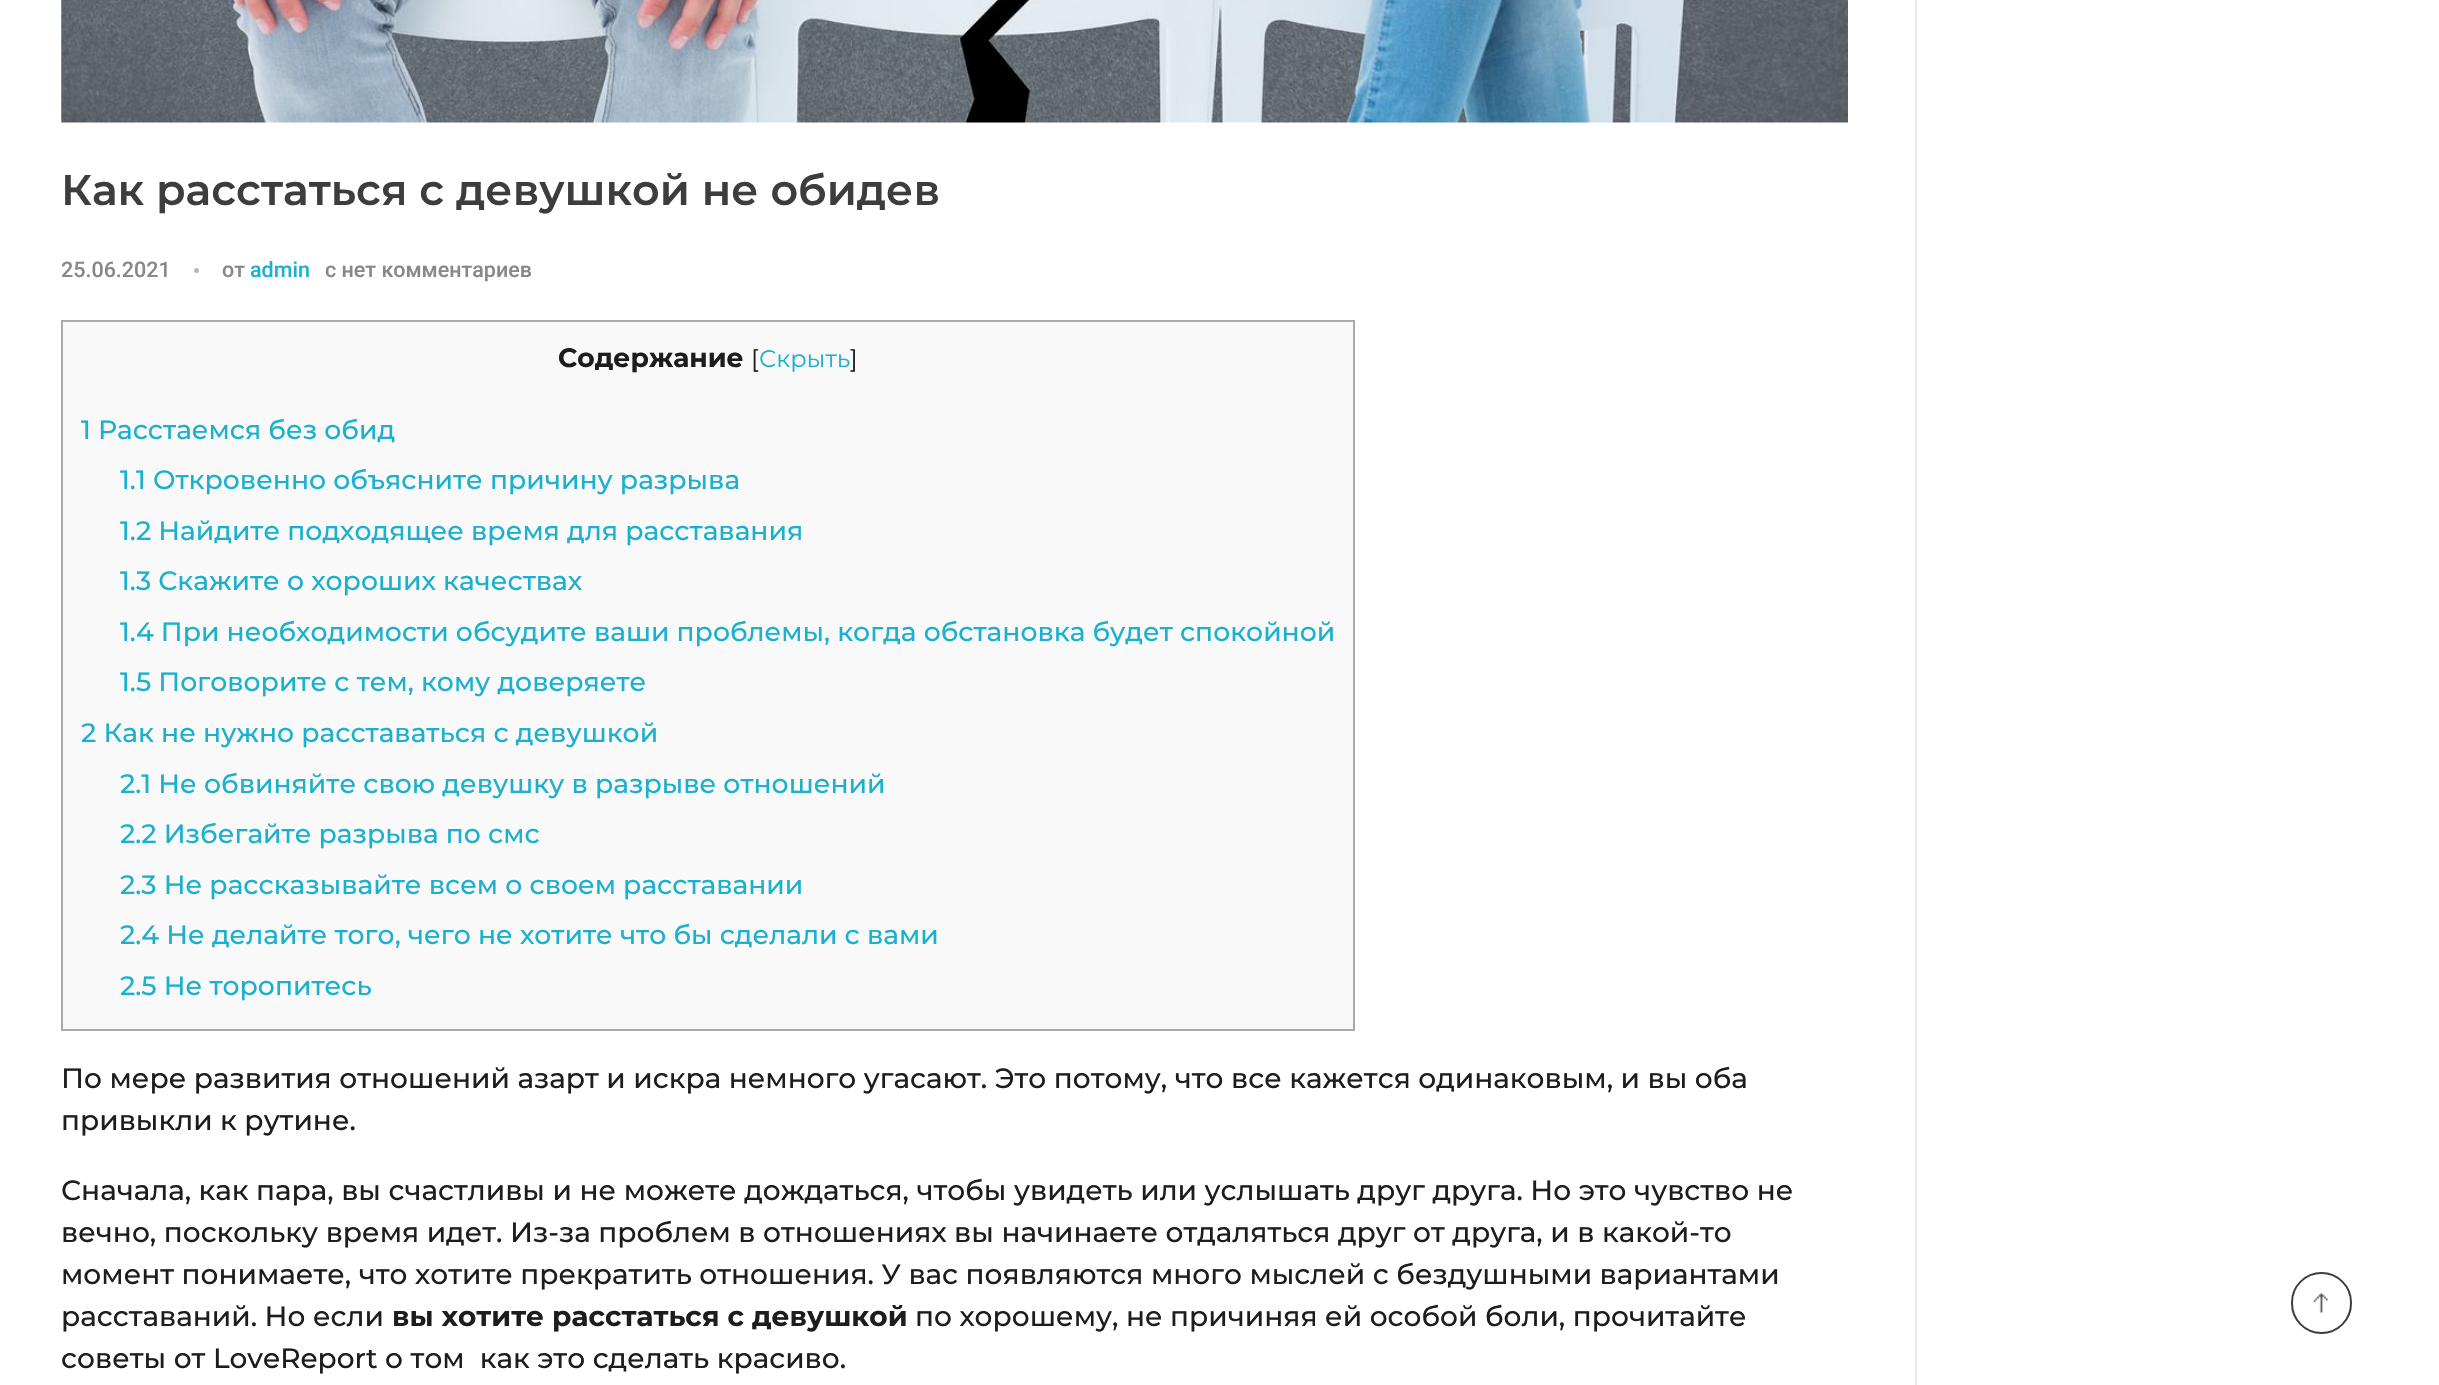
void draw(SkCanvas* canvas) {
	SkPaint paint;
	paint.setAntiAlias(true);
	canvas->clear(0xffffffff);
	canvas->drawImageRect(SkImages::DeferredFromEncodedData(SkData::MakeFromFileName("img1.png")), SkRect::MakeXYWH(61, 0, 1787, 123), SkSamplingOptions());
	SkFont f1(fontMgr->matchFamilyStyle("Montserrat", SkFontStyle(600, SkFontStyle::kNormal_Width, SkFontStyle::kUpright_Slant)), 42.9);
	f1.setSubpixel(true);
	paint.setColor(0xff3d3d3d);
	canvas->drawString("Как расстаться с девушкой не обидев", 61, 205, f1, paint);
	SkFont f2(fontMgr->matchFamilyStyle("Roboto", SkFontStyle(500, SkFontStyle::kNormal_Width, SkFontStyle::kUpright_Slant)), 21.5);
	f2.setSubpixel(true);
	paint.setColor(0xff888888);
	canvas->drawString("25.06.2021", 61, 277, f2, paint);
	paint.setColor(0xffbbbbbb);
	canvas->drawCircle(196.5, 270.5, 2.5, paint);
	paint.setColor(0xff888888);
	canvas->drawString("от", 222, 277, f2, paint);
	paint.setColor(0xff1bb0ce);
	canvas->drawString("admin", 250, 277, f2, paint);
	paint.setColor(0xff888888);
	canvas->drawString("с нет комментариев", 325, 277, f2, paint);
	paint.setColor(0xfff9f9f9);
	canvas->drawRect(SkRect::MakeXYWH(62, 321, 1292, 709), paint);
	paint.setStroke(true);
	paint.setStrokeWidth(2);
	paint.setColor(0xffaaaaaa);
	canvas->drawRect(SkRect::MakeXYWH(62, 321, 1292, 709), paint);
	SkFont f3(fontMgr->matchFamilyStyle("Montserrat", SkFontStyle::Bold()), 26.6);
	f3.setSubpixel(true);
	paint.setStroke(false);
	paint.setColor(0xff1d1d1d);
	canvas->drawString("Содержание", 558, 367, f3, paint);
	SkFont f4(fontMgr->matchFamilyStyle("Montserrat", SkFontStyle::Normal()), 24);
	f4.setSubpixel(true);
	canvas->drawString("[", 751, 367, f4, paint);
	paint.setColor(0xff1bb0ce);
	canvas->drawString("Скрыть", 759, 367, f4, paint);
	paint.setColor(0xff1d1d1d);
	canvas->drawString("]", 850, 367, f4, paint);
	SkFont f5(fontMgr->matchFamilyStyle("Montserrat", SkFontStyle(500, SkFontStyle::kNormal_Width, SkFontStyle::kUpright_Slant)), 26.6);
	f5.setSubpixel(true);
	paint.setColor(0xff1bb0ce);
	canvas->drawString("1 Расстаемся без обид", 81, 439, f5, paint);
	canvas->drawString("1.1 Откровенно объясните причину разрыва", 120, 489, f5, paint);
	canvas->drawString("1.2 Найдите подходящее время для расставания", 120, 540, f5, paint);
	canvas->drawString("1.3 Скажите о хороших качествах", 120, 590, f5, paint);
	canvas->drawString("1.4 При необходимости обсудите ваши проблемы, когда обстановка будет спокойной", 120, 641, f5, paint);
	canvas->drawString("1.5 Поговорите с тем, кому доверяете", 120, 691, f5, paint);
	canvas->drawString("2 Как не нужно расставаться с девушкой", 81, 742, f5, paint);
	canvas->drawString("2.1 Не обвиняйте свою девушку в разрыве отношений", 120, 793, f5, paint);
	canvas->drawString("2.2 Избегайте разрыва по смс", 120, 843, f5, paint);
	canvas->drawString("2.3 Не рассказывайте всем о своем расставании", 120, 894, f5, paint);
	canvas->drawString("2.4 Не делайте того, чего не хотите что бы сделали с вами", 120, 944, f5, paint);
	canvas->drawString("2.5 Не торопитесь", 120, 995, f5, paint);
	SkFont f6(fontMgr->matchFamilyStyle("Montserrat", SkFontStyle(500, SkFontStyle::kNormal_Width, SkFontStyle::kUpright_Slant)), 28);
	f6.setSubpixel(true);
	paint.setColor(0xff1d1d1d);
	canvas->drawString("По мере развития отношений азарт и искра немного угасают. Это потому, что все кажется одинаковым, и вы оба", 61, 1088, f6, paint);
	canvas->drawString("привыкли к рутине.", 61, 1130, f6, paint);
	canvas->drawString("Сначала, как пара, вы счастливы и не можете дождаться, чтобы увидеть или услышать друг друга. Но это чувство не", 61, 1200, f6, paint);
	canvas->drawString("вечно, поскольку время идет. Из-за проблем в отношениях вы начинаете отдаляться друг от друга, и в какой-то", 61, 1242, f6, paint);
	canvas->drawString("момент понимаете, что хотите прекратить отношения. У вас появляются много мыслей с бездушными вариантами", 61, 1284, f6, paint);
	canvas->drawString("расставаний. Но если", 61, 1326, f6, paint);
	SkFont f7(fontMgr->matchFamilyStyle("Montserrat", SkFontStyle::Bold()), 28);
	f7.setSubpixel(true);
	canvas->drawString("вы хотите расстаться с девушкой", 392, 1326, f7, paint);
	canvas->drawString("по хорошему, не причиняя ей особой боли, прочитайте", 915, 1326, f6, paint);
	canvas->drawString("советы от LoveReport о том  как это сделать красиво.", 61, 1368, f6, paint);
	paint.setColor(0xffeaeaea);
	canvas->drawRect(SkRect::MakeXYWH(1915, 0, 2, 1385), paint);
	paint.setStroke(true);
	paint.setColor(0xff3d3d3d);
	canvas->drawRoundRect(SkRect::MakeXYWH(2292, 1273, 59, 60), 29.5, 29.5, paint);
	canvas->drawImageRect(SkImages::DeferredFromEncodedData(SkData::MakeFromFileName("img2.png")), SkRect::MakeXYWH(2313, 1293, 15, 20), SkSamplingOptions());
}
